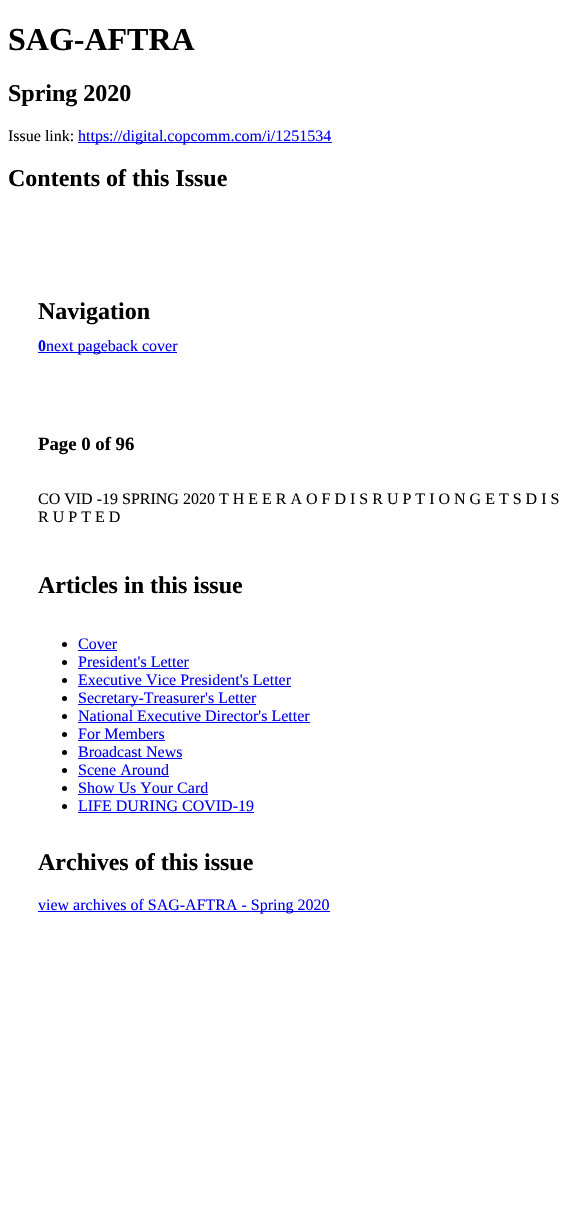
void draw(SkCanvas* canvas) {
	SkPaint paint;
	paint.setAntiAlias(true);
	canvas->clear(0xffffffff);
	SkFont f1(fontMgr->matchFamilyStyle("Liberation Serif", SkFontStyle::Bold()), 32);
	f1.setSubpixel(true);
	paint.setColor(0xff000000);
	canvas->drawString("SAG-AFTRA", 8, 50, f1, paint);
	SkFont f2(fontMgr->matchFamilyStyle("Liberation Serif", SkFontStyle::Bold()), 24);
	f2.setSubpixel(true);
	canvas->drawString("Spring 2020", 8, 101, f2, paint);
	SkFont f3(fontMgr->matchFamilyStyle("Liberation Serif", SkFontStyle::Normal()), 16);
	f3.setSubpixel(true);
	canvas->drawString("Issue link:", 8, 141, f3, paint);
	paint.setColor(0xff0000ee);
	canvas->drawRect(SkRect::MakeXYWH(78, 142, 254, 1), paint);
	canvas->drawString("https://digital.copcomm.com/i/1251534", 78, 141, f3, paint);
	paint.setColor(0xff000000);
	canvas->drawString("Contents of this Issue", 8, 186, f2, paint);
	canvas->drawString("Navigation", 38, 319, f2, paint);
	SkFont f4(fontMgr->matchFamilyStyle("Liberation Serif", SkFontStyle::Bold()), 16);
	f4.setSubpixel(true);
	paint.setColor(0xff0000ee);
	canvas->drawString("0", 38, 351, f4, paint);
	canvas->drawRect(SkRect::MakeXYWH(38, 352, 139, 1), paint);
	canvas->drawString("next pageback cover", 46, 351, f3, paint);
	SkFont f5(fontMgr->matchFamilyStyle("Liberation Serif", SkFontStyle::Bold()), 18.75);
	f5.setSubpixel(true);
	paint.setColor(0xff000000);
	canvas->drawString("Page 0 of 96", 38, 450, f5, paint);
	canvas->drawString("CO VID -19 SPRING 2020 T H E E R A O F D I S R U P T I O N G E T S D I S", 38, 504, f3, paint);
	canvas->drawString("R U P T E D", 38, 522, f3, paint);
	canvas->drawString("Articles in this issue", 38, 593, f2, paint);
	canvas->drawCircle(64.5, 644.5, 2.5, paint);
	paint.setColor(0xff0000ee);
	canvas->drawString("Cover", 78, 649, f3, paint);
	canvas->drawRect(SkRect::MakeXYWH(78, 650, 39, 1), paint);
	paint.setColor(0xff000000);
	canvas->drawCircle(64.5, 662.5, 2.5, paint);
	paint.setColor(0xff0000ee);
	canvas->drawString("President's Letter", 78, 667, f3, paint);
	canvas->drawRect(SkRect::MakeXYWH(78, 668, 111, 1), paint);
	paint.setColor(0xff000000);
	canvas->drawCircle(64.5, 680.5, 2.5, paint);
	paint.setColor(0xff0000ee);
	canvas->drawString("Executive Vice President's Letter", 78, 685, f3, paint);
	canvas->drawRect(SkRect::MakeXYWH(78, 686, 213, 1), paint);
	paint.setColor(0xff000000);
	canvas->drawCircle(64.5, 698.5, 2.5, paint);
	paint.setColor(0xff0000ee);
	canvas->drawRect(SkRect::MakeXYWH(78, 704, 178, 1), paint);
	canvas->drawString("Secretary-Treasurer's Letter", 78, 703, f3, paint);
	paint.setColor(0xff000000);
	canvas->drawCircle(64.5, 716.5, 2.5, paint);
	paint.setColor(0xff0000ee);
	canvas->drawString("National Executive Director's Letter", 78, 721, f3, paint);
	canvas->drawRect(SkRect::MakeXYWH(78, 722, 232, 1), paint);
	paint.setColor(0xff000000);
	canvas->drawCircle(64.5, 734.5, 2.5, paint);
	paint.setColor(0xff0000ee);
	canvas->drawString("For Members", 78, 739, f3, paint);
	canvas->drawRect(SkRect::MakeXYWH(78, 740, 87, 1), paint);
	paint.setColor(0xff000000);
	canvas->drawCircle(64.5, 752.5, 2.5, paint);
	paint.setColor(0xff0000ee);
	canvas->drawString("Broadcast News", 78, 757, f3, paint);
	canvas->drawRect(SkRect::MakeXYWH(78, 758, 104, 1), paint);
	paint.setColor(0xff000000);
	canvas->drawCircle(64.5, 770.5, 2.5, paint);
	paint.setColor(0xff0000ee);
	canvas->drawString("Scene Around", 78, 775, f3, paint);
	canvas->drawRect(SkRect::MakeXYWH(78, 776, 91, 1), paint);
	paint.setColor(0xff000000);
	canvas->drawCircle(64.5, 788.5, 2.5, paint);
	paint.setColor(0xff0000ee);
	canvas->drawString("Show Us Your Card", 78, 793, f3, paint);
	canvas->drawRect(SkRect::MakeXYWH(78, 794, 130, 1), paint);
	paint.setColor(0xff000000);
	canvas->drawCircle(64.5, 806.5, 2.5, paint);
	paint.setColor(0xff0000ee);
	canvas->drawString("LIFE DURING COVID-19", 78, 811, f3, paint);
	canvas->drawRect(SkRect::MakeXYWH(78, 812, 176, 1), paint);
	paint.setColor(0xff000000);
	canvas->drawString("Archives of this issue", 38, 870, f2, paint);
	paint.setColor(0xff0000ee);
	canvas->drawRect(SkRect::MakeXYWH(38, 911, 292, 1), paint);
	canvas->drawString("view archives of SAG-AFTRA - Spring 2020", 38, 910, f3, paint);
}
